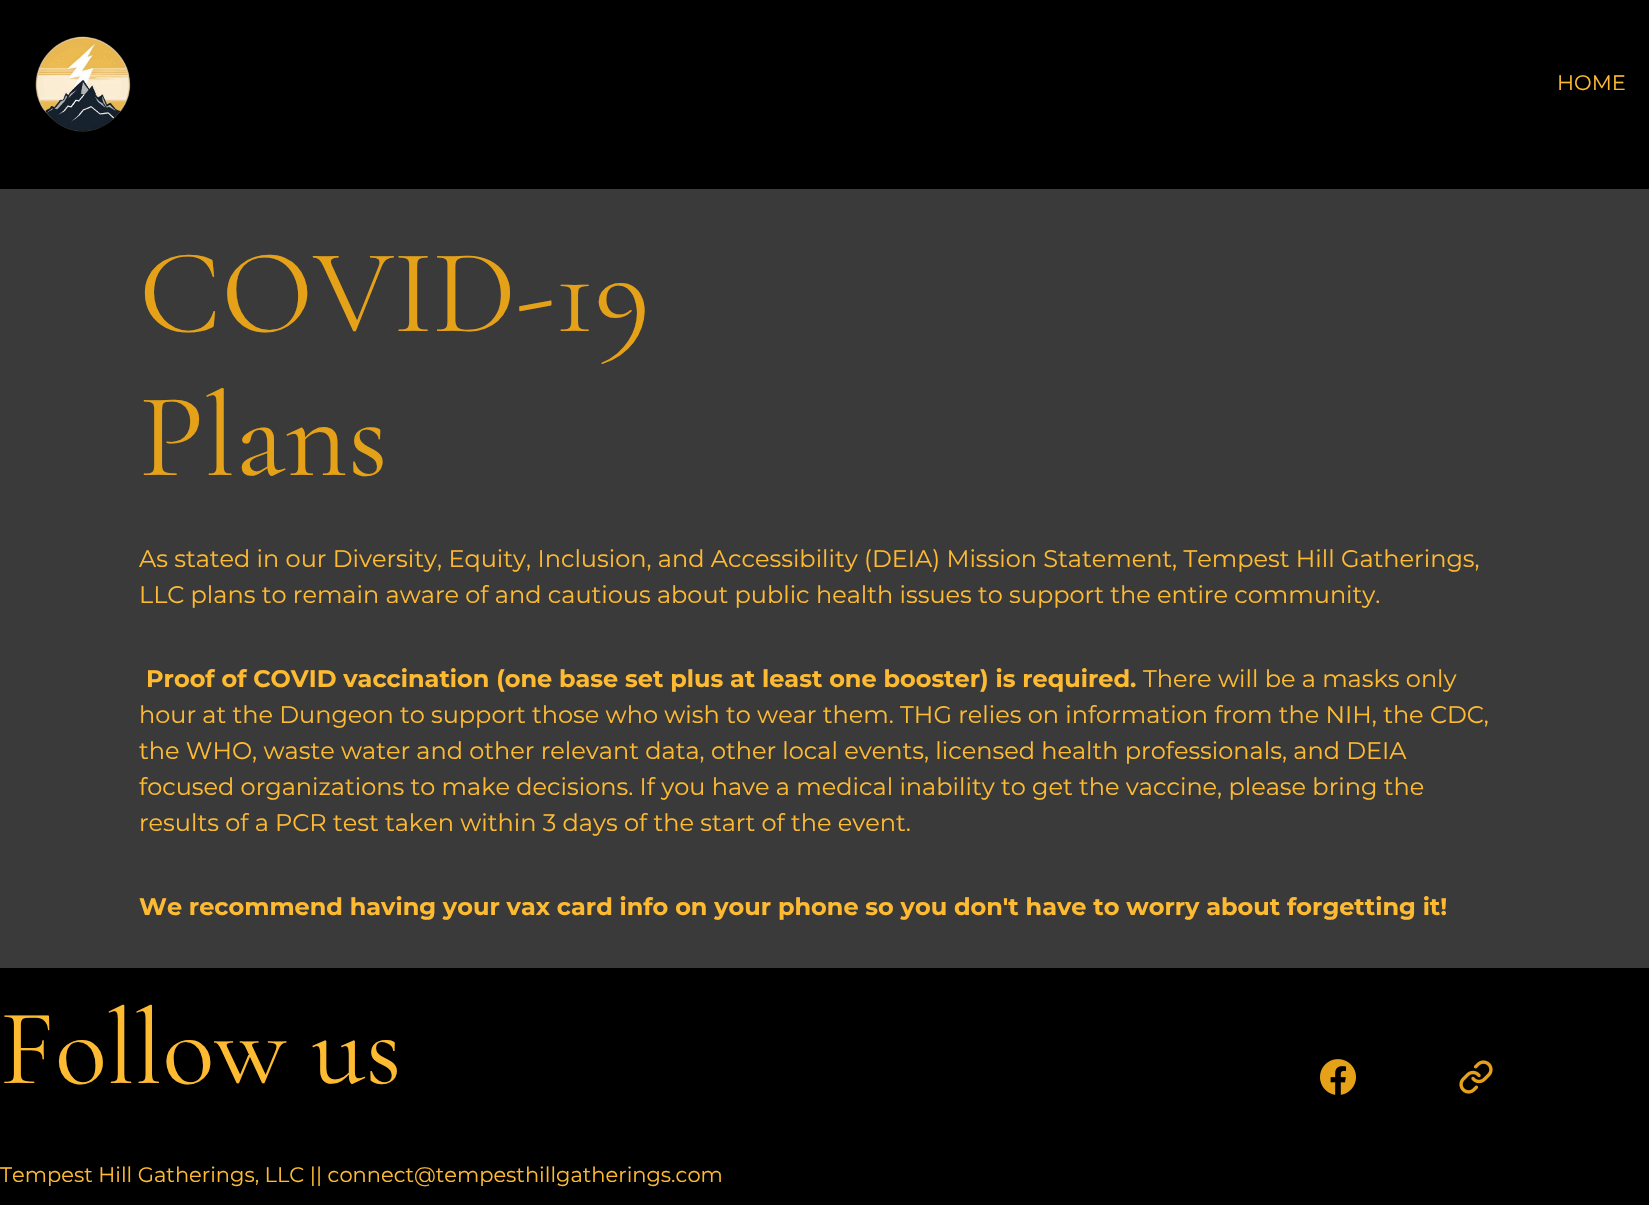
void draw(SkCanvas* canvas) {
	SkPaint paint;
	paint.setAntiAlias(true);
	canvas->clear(0xff3a3a3a);
	paint.setColor(0xff000000);
	canvas->drawRect(SkRect::MakeXYWH(0, 0, 1649, 189), paint);
	canvas->drawImageRect(SkImages::DeferredFromEncodedData(SkData::MakeFromFileName("img1.png")), SkRect::MakeXYWH(35, 36, 96, 96), SkSamplingOptions());
	SkFont f1(fontMgr->matchFamilyStyle("Montserrat", SkFontStyle(100, SkFontStyle::kNormal_Width, SkFontStyle::kUpright_Slant)), 21);
	f1.setSubpixel(true);
	paint.setColor(0xfffebb32);
	canvas->drawString("HOME", 1557, 90, f1, paint);
	SkFont f2(fontMgr->matchFamilyStyle("Cormorant Garamond", SkFontStyle(300, SkFontStyle::kNormal_Width, SkFontStyle::kUpright_Slant)), 120);
	f2.setSubpixel(true);
	paint.setColor(0xffe5a219);
	canvas->drawString("COVID-19", 139, 331, f2, paint);
	canvas->drawString("Plans", 139, 475, f2, paint);
	SkFont f3(fontMgr->matchFamilyStyle("Montserrat", SkFontStyle(100, SkFontStyle::kNormal_Width, SkFontStyle::kUpright_Slant)), 24);
	f3.setSubpixel(true);
	paint.setColor(0xfffebb32);
	canvas->drawString("As stated in our Diversity, Equity, Inclusion, and Accessibility (DEIA) Mission Statement, Tempest Hill Gatherings,", 139, 567, f3, paint);
	canvas->drawString("LLC plans to remain aware of and cautious about public health issues to support the entire community.", 139, 603, f3, paint);
	SkFont f4(fontMgr->matchFamilyStyle("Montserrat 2", SkFontStyle(100, SkFontStyle::kNormal_Width, SkFontStyle::kUpright_Slant)), 24);
	f4.setSubpixel(true);
	canvas->drawString("Proof of COVID vaccination (one base set plus at least one booster) is required.", 146, 687, f4, paint);
	canvas->drawString("There will be a masks only", 1143, 687, f3, paint);
	canvas->drawString("hour at the Dungeon to support those who wish to wear them. THG relies on information from the NIH, the CDC,", 139, 723, f3, paint);
	canvas->drawString("the WHO, waste water and other relevant data, other local events, licensed health professionals, and DEIA", 139, 759, f3, paint);
	canvas->drawString("focused organizations to make decisions. If you have a medical inability to get the vaccine, please bring the", 139, 795, f3, paint);
	canvas->drawString("results of a PCR test taken within 3 days of the start of the event.", 139, 831, f3, paint);
	canvas->drawString("We recommend having your vax card info on your phone so you don't have to worry about forgetting it!", 139, 915, f4, paint);
	paint.setColor(0xff000000);
	canvas->drawRect(SkRect::MakeXYWH(0, 968, 1649, 237), paint);
	SkFont f5(fontMgr->matchFamilyStyle("Cormorant Garamond", SkFontStyle(300, SkFontStyle::kNormal_Width, SkFontStyle::kUpright_Slant)), 108);
	f5.setSubpixel(true);
	paint.setColor(0xfffebb32);
	canvas->drawString("Follow us", 0, 1083, f5, paint);
	canvas->drawString("Tempest Hill Gatherings, LLC || connect@tempesthillgatherings.com", 0, 1182, f1, paint);
	canvas->drawImageRect(SkImages::DeferredFromEncodedData(SkData::MakeFromFileName("img2.png")), SkRect::MakeXYWH(1320, 1059, 36, 36), SkSamplingOptions());
	canvas->drawImageRect(SkImages::DeferredFromEncodedData(SkData::MakeFromFileName("img3.png")), SkRect::MakeXYWH(1459, 1060, 34, 34), SkSamplingOptions());
}
